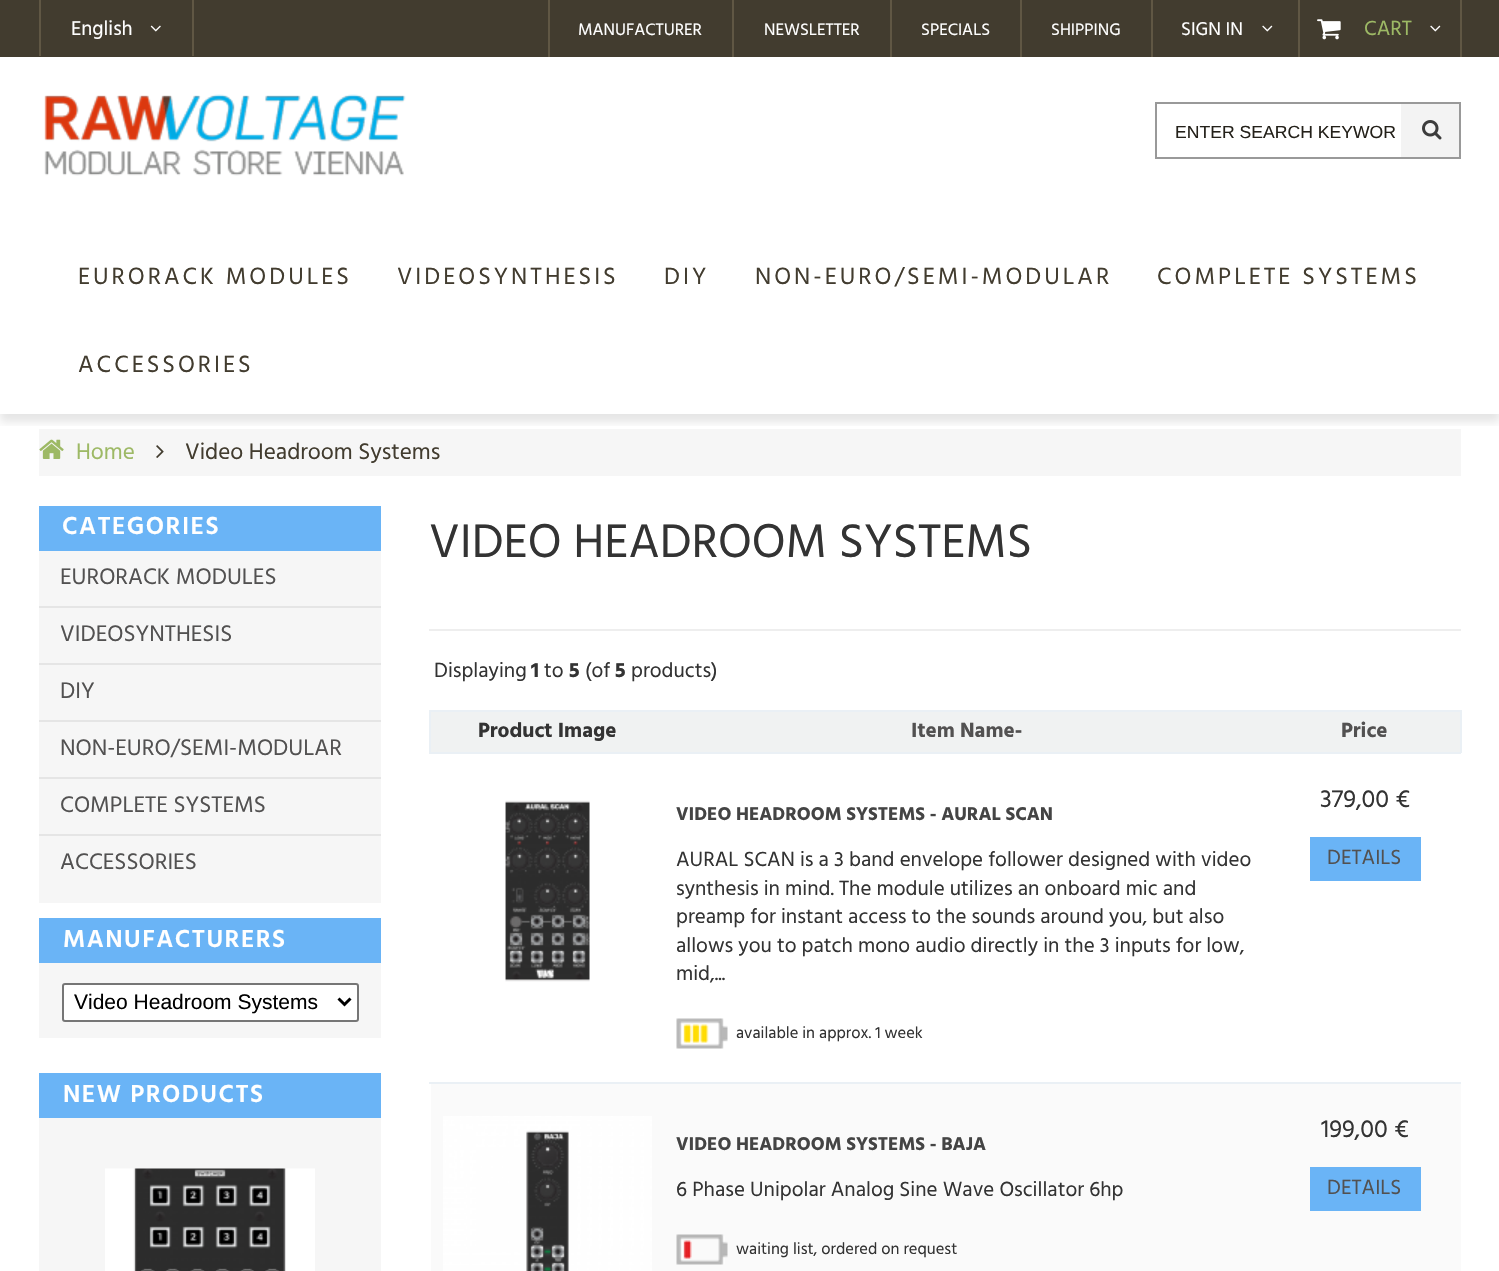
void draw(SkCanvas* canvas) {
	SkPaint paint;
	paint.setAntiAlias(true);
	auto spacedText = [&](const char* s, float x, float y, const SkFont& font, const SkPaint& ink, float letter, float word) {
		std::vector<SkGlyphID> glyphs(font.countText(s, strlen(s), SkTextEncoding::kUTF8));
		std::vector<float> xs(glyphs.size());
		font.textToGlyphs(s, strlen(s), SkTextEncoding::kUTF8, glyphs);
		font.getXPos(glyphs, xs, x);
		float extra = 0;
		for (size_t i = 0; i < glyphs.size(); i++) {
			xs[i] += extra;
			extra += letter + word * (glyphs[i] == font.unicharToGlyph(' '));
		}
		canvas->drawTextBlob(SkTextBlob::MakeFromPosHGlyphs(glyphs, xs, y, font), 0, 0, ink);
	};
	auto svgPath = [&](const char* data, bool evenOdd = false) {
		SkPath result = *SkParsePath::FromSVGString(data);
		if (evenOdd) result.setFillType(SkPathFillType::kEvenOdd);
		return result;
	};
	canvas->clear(0xffffffff);
	paint.setColor(0xff423c2f);
	canvas->drawRect(SkRect::MakeXYWH(0, 0, 1499, 57), paint);
	paint.setColor(0xff605744);
	canvas->drawRect(SkRect::MakeXYWH(39, 0, 2, 56), paint);
	canvas->drawRect(SkRect::MakeXYWH(192, 0, 2, 56), paint);
	SkFont f1(fontMgr->matchFamilyStyle("Hind", SkFontStyle::Normal()), 20.5);
	f1.setSubpixel(true);
	paint.setColor(0xffffffff);
	canvas->drawString("English", 71, 35, f1, paint);
	canvas->drawImageRect(SkImages::DeferredFromEncodedData(SkData::MakeFromFileName("img1.png")), SkRect::MakeXYWH(150, 25, 11, 7), SkSamplingOptions());
	paint.setColor(0xff605744);
	canvas->drawRect(SkRect::MakeXYWH(732, 0, 2, 57), paint);
	canvas->drawRect(SkRect::MakeXYWH(548, 0, 2, 57), paint);
	SkFont f2(fontMgr->matchFamilyStyle("Hind", SkFontStyle::Normal()), 17);
	f2.setSubpixel(true);
	paint.setColor(0xffffffff);
	canvas->drawString("MANUFACTURER", 578, 35, f2, paint);
	paint.setColor(0xff605744);
	canvas->drawRect(SkRect::MakeXYWH(890, 0, 2, 57), paint);
	paint.setColor(0xffffffff);
	canvas->drawString("NEWSLETTER", 764, 35, f2, paint);
	paint.setColor(0xff605744);
	canvas->drawRect(SkRect::MakeXYWH(1020, 0, 2, 57), paint);
	paint.setColor(0xffffffff);
	canvas->drawString("SPECIALS", 921, 35, f2, paint);
	paint.setColor(0xff605744);
	canvas->drawRect(SkRect::MakeXYWH(1151, 0, 2, 57), paint);
	paint.setColor(0xffffffff);
	canvas->drawString("SHIPPING", 1051, 35, f2, paint);
	paint.setColor(0xff605744);
	canvas->drawRect(SkRect::MakeXYWH(1298, 0, 2, 57), paint);
	SkFont f3(fontMgr->matchFamilyStyle("Hind", SkFontStyle::Normal()), 18.9);
	f3.setSubpixel(true);
	paint.setColor(0xffffffff);
	canvas->drawString("SIGN IN", 1181, 35, f3, paint);
	canvas->drawImageRect(SkImages::DeferredFromEncodedData(SkData::MakeFromFileName("img2.png")), SkRect::MakeXYWH(1262, 25, 11, 7), SkSamplingOptions());
	paint.setColor(0xff605744);
	canvas->drawRect(SkRect::MakeXYWH(1460, 0, 2, 57), paint);
	canvas->drawImageRect(SkImages::DeferredFromEncodedData(SkData::MakeFromFileName("img3.png")), SkRect::MakeXYWH(1317, 19, 24, 21), SkSamplingOptions());
	SkFont f4(fontMgr->matchFamilyStyle("Hind", SkFontStyle::Normal()), 21);
	f4.setSubpixel(true);
	paint.setColor(0xff9db965);
	canvas->drawString("CART", 1364, 35, f4, paint);
	canvas->drawImageRect(SkImages::DeferredFromEncodedData(SkData::MakeFromFileName("img2.png")), SkRect::MakeXYWH(1430, 25, 11, 7), SkSamplingOptions());
	canvas->drawImageRect(SkImages::DeferredFromEncodedData(SkData::MakeFromFileName("img4.png")), SkRect::MakeXYWH(44, 94, 362, 82), SkSamplingOptions());
	paint.setStroke(true);
	paint.setStrokeWidth(2);
	paint.setColor(0xff999999);
	canvas->drawRect(SkRect::MakeXYWH(1156, 103, 304, 55), paint);
	canvas->drawImageRect(SkImages::DeferredFromEncodedData(SkData::MakeFromFileName("img5.png")), SkRect::MakeXYWH(1422, 120, 20, 20), SkSamplingOptions());
	paint.setStroke(false);
	paint.setColor(0x1a888888);
	canvas->drawRect(SkRect::MakeXYWH(1401, 104, 58, 53), paint);
	SkFont f5(fontMgr->matchFamilyStyle("Liberation Sans", SkFontStyle::Normal()), 17.6);
	f5.setSubpixel(true);
	paint.setColor(0xff24211a);
	canvas->drawString("ENTER SEARCH KEYWOR", 1175, 138, f5, paint);
	paint.setColor(0xfff6f6f6);
	canvas->drawRect(SkRect::MakeXYWH(39, 429, 1422, 47), paint);
	canvas->save();
	canvas->clipRect(SkRect::MakeXYWH(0, 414, 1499, 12));
	paint.setColor(0x1a000000);
	paint.setMaskFilter(SkMaskFilter::MakeBlur(kNormal_SkBlurStyle, 4.5));
	canvas->drawRect(SkRect::MakeXYWH(0, 185, 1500, 237), paint);
	paint.setMaskFilter(nullptr);
	canvas->restore();
	SkFont f6(fontMgr->matchFamilyStyle("Hind", SkFontStyle::Normal()), 24.1);
	f6.setSubpixel(true);
	paint.setColor(0xff423c2f);
	spacedText("EURORACK MODULES", 78, 284, f6, paint, 3, 0);
	spacedText("VIDEOSYNTHESIS", 397, 284, f6, paint, 3, 0);
	spacedText("DIY", 664, 284, f6, paint, 3, 0);
	spacedText("NON-EURO/SEMI-MODULAR", 755, 284, f6, paint, 3, 0);
	spacedText("COMPLETE SYSTEMS", 1157, 284, f6, paint, 3, 0);
	spacedText("ACCESSORIES", 78, 372, f6, paint, 3, 0);
	canvas->drawImageRect(SkImages::DeferredFromEncodedData(SkData::MakeFromFileName("img6.png")), SkRect::MakeXYWH(39, 439, 25, 20), SkSamplingOptions());
	SkFont f7(fontMgr->matchFamilyStyle("Hind", SkFontStyle::Normal()), 23.1);
	f7.setSubpixel(true);
	paint.setColor(0xff9db965);
	canvas->drawString("Home", 76, 459, f7, paint);
	canvas->drawImageRect(SkImages::DeferredFromEncodedData(SkData::MakeFromFileName("img7.png")), SkRect::MakeXYWH(156, 445, 8, 13), SkSamplingOptions());
	paint.setColor(0xff423c2f);
	canvas->drawString("Video Headroom Systems", 185, 459, f7, paint);
	paint.setColor(0xfff6f6f6);
	canvas->drawRect(SkRect::MakeXYWH(39, 551, 342, 352), paint);
	paint.setColor(0xff6ab4f6);
	canvas->drawRect(SkRect::MakeXYWH(39, 506, 342, 45), paint);
	SkFont f8(fontMgr->matchFamilyStyle("Hind", SkFontStyle(600, SkFontStyle::kNormal_Width, SkFontStyle::kUpright_Slant)), 25.25);
	f8.setSubpixel(true);
	paint.setColor(0xffffffff);
	spacedText("CATEGORIES", 62, 534, f8, paint, 1.5, 0);
	paint.setColor(0xff525151);
	canvas->drawString("EURORACK MODULES", 60, 584, f7, paint);
	paint.setColor(0xffe5e5e5);
	canvas->drawRect(SkRect::MakeXYWH(39, 606, 342, 2), paint);
	paint.setColor(0xff525151);
	canvas->drawString("VIDEOSYNTHESIS", 60, 641, f7, paint);
	paint.setColor(0xffe5e5e5);
	canvas->drawRect(SkRect::MakeXYWH(39, 663, 342, 2), paint);
	paint.setColor(0xff525151);
	canvas->drawString("DIY", 60, 698, f7, paint);
	paint.setColor(0xffe5e5e5);
	canvas->drawRect(SkRect::MakeXYWH(39, 720, 342, 2), paint);
	paint.setColor(0xff525151);
	canvas->drawString("NON-EURO/SEMI-MODULAR", 60, 755, f7, paint);
	paint.setColor(0xffe5e5e5);
	canvas->drawRect(SkRect::MakeXYWH(39, 777, 342, 2), paint);
	paint.setColor(0xff525151);
	canvas->drawString("COMPLETE SYSTEMS", 60, 812, f7, paint);
	paint.setColor(0xffe5e5e5);
	canvas->drawRect(SkRect::MakeXYWH(39, 834, 342, 2), paint);
	paint.setColor(0xff525151);
	canvas->drawString("ACCESSORIES", 60, 869, f7, paint);
	paint.setColor(0xfff6f6f6);
	canvas->drawRect(SkRect::MakeXYWH(39, 963, 342, 75), paint);
	paint.setColor(0xff6ab4f6);
	canvas->drawRect(SkRect::MakeXYWH(39, 918, 342, 45), paint);
	paint.setColor(0xffffffff);
	spacedText("MANUFACTURERS", 63, 947, f8, paint, 1.5, 0);
	canvas->drawRoundRect(SkRect::MakeXYWH(63, 984, 295, 37), 2, 2, paint);
	paint.setStroke(true);
	paint.setColor(0xff767676);
	canvas->drawRoundRect(SkRect::MakeXYWH(63, 984, 295, 37), 2, 2, paint);
	paint.setStrokeWidth(3);
	paint.setColor(0xff000000);
	canvas->drawPath(svgPath("M338.5 998.5L344.5 1004.5L350.5 998.5"), paint);
	SkFont f9(fontMgr->matchFamilyStyle("Liberation Sans", SkFontStyle::Normal()), 21);
	f9.setSubpixel(true);
	paint.setStroke(false);
	canvas->drawString("Video Headroom Systems", 74, 1009, f9, paint);
	paint.setColor(0xfff6f6f6);
	canvas->drawRect(SkRect::MakeXYWH(39, 1118, 342, 153), paint);
	paint.setColor(0xff6ab4f6);
	canvas->drawRect(SkRect::MakeXYWH(39, 1073, 342, 45), paint);
	paint.setColor(0xffffffff);
	spacedText("NEW PRODUCTS", 63, 1102, f8, paint, 1.5, 0);
	canvas->drawImageRect(SkImages::DeferredFromEncodedData(SkData::MakeFromFileName("img8.png")), SkRect::MakeXYWH(105, 1168, 210, 103), SkSamplingOptions());
	SkFont f10(fontMgr->matchFamilyStyle("Hind", SkFontStyle::Normal()), 48.25);
	f10.setSubpixel(true);
	paint.setColor(0xff333333);
	canvas->drawString("VIDEO HEADROOM SYSTEMS", 429, 557, f10, paint);
	paint.setColor(0xffeeeeee);
	canvas->drawRect(SkRect::MakeXYWH(429, 629, 1032, 2), paint);
	paint.setColor(0xff333333);
	canvas->drawString("Displaying", 434, 677, f4, paint);
	SkFont f11(fontMgr->matchFamilyStyle("Hind", SkFontStyle::Bold()), 21);
	f11.setSubpixel(true);
	canvas->drawString("1", 531, 677, f11, paint);
	canvas->drawString("to", 544, 677, f4, paint);
	canvas->drawString("5", 569, 677, f11, paint);
	canvas->drawString("(of", 585, 677, f4, paint);
	canvas->drawString("5", 615, 677, f11, paint);
	canvas->drawString("products)", 631, 677, f4, paint);
	paint.setColor(0xfff0f2f2);
	canvas->drawRect(SkRect::MakeXYWH(431, 712, 1029, 40), paint);
	paint.setColor(0xffeaf0f5);
	canvas->drawRect(SkRect::MakeXYWH(429, 710, 1032, 2), paint);
	canvas->drawRect(SkRect::MakeXYWH(1460, 710, 2, 43), paint);
	canvas->drawRect(SkRect::MakeXYWH(429, 752, 1032, 2), paint);
	canvas->drawRect(SkRect::MakeXYWH(429, 710, 2, 43), paint);
	paint.setColor(0xff333333);
	canvas->drawString("Product Image", 478, 737, f11, paint);
	paint.setColor(0xff525151);
	canvas->drawString("Item Name-", 911, 737, f11, paint);
	canvas->drawString("Price", 1341, 737, f11, paint);
	canvas->drawImageRect(SkImages::DeferredFromEncodedData(SkData::MakeFromFileName("img9.png")), SkRect::MakeXYWH(505, 800, 85, 182), SkSamplingOptions());
	SkFont f12(fontMgr->matchFamilyStyle("Hind", SkFontStyle::Bold()), 18.9);
	f12.setSubpixel(true);
	paint.setColor(0xff444444);
	canvas->drawString("VIDEO HEADROOM SYSTEMS - AURAL SCAN", 676, 820, f12, paint);
	paint.setColor(0xff333333);
	canvas->drawString("AURAL SCAN is a 3 band envelope follower designed with video", 676, 866, f4, paint);
	canvas->drawString("synthesis in mind. The module utilizes an onboard mic and", 676, 895, f4, paint);
	canvas->drawString("preamp for instant access to the sounds around you, but also", 676, 923, f4, paint);
	canvas->drawString("allows you to patch mono audio directly in the 3 inputs for low,", 676, 952, f4, paint);
	canvas->drawString("mid,...", 676, 980, f4, paint);
	canvas->drawImageRect(SkImages::DeferredFromEncodedData(SkData::MakeFromFileName("img10.png")), SkRect::MakeXYWH(676, 1018, 52, 31), SkSamplingOptions());
	SkFont f13(fontMgr->matchFamilyStyle("Hind", SkFontStyle::Normal()), 16.5);
	f13.setSubpixel(true);
	canvas->drawString("available in approx. 1 week", 736, 1038, f13, paint);
	paint.setColor(0xffeaf0f5);
	canvas->drawRect(SkRect::MakeXYWH(429, 1082, 1032, 2), paint);
	SkFont f14(fontMgr->matchFamilyStyle("Hind", SkFontStyle::Normal()), 25.25);
	f14.setSubpixel(true);
	paint.setColor(0xff333333);
	canvas->drawString("379,00 €", 1320, 807, f14, paint);
	paint.setColor(0xff6ab4f6);
	canvas->drawRect(SkRect::MakeXYWH(1310, 837, 111, 44), paint);
	paint.setColor(0xff525151);
	canvas->drawString("DETAILS", 1327, 864, f4, paint);
	paint.setColor(0xfffafafa);
	canvas->drawRect(SkRect::MakeXYWH(431, 1084, 1030, 187), paint);
	canvas->drawImageRect(SkImages::DeferredFromEncodedData(SkData::MakeFromFileName("img11.png")), SkRect::MakeXYWH(443, 1116, 209, 155), SkSamplingOptions());
	paint.setColor(0xff444444);
	canvas->drawString("VIDEO HEADROOM SYSTEMS - BAJA", 676, 1150, f12, paint);
	paint.setColor(0xff333333);
	canvas->drawString("6 Phase Unipolar Analog Sine Wave Oscillator 6hp", 676, 1196, f4, paint);
	canvas->drawImageRect(SkImages::DeferredFromEncodedData(SkData::MakeFromFileName("img12.png")), SkRect::MakeXYWH(676, 1234, 52, 31), SkSamplingOptions());
	canvas->drawString("waiting list, ordered on request", 736, 1254, f13, paint);
	canvas->drawString("199,00 €", 1321, 1137, f14, paint);
	paint.setColor(0xff6ab4f6);
	canvas->drawRect(SkRect::MakeXYWH(1310, 1167, 111, 44), paint);
	paint.setColor(0xff525151);
	canvas->drawString("DETAILS", 1327, 1194, f4, paint);
}
